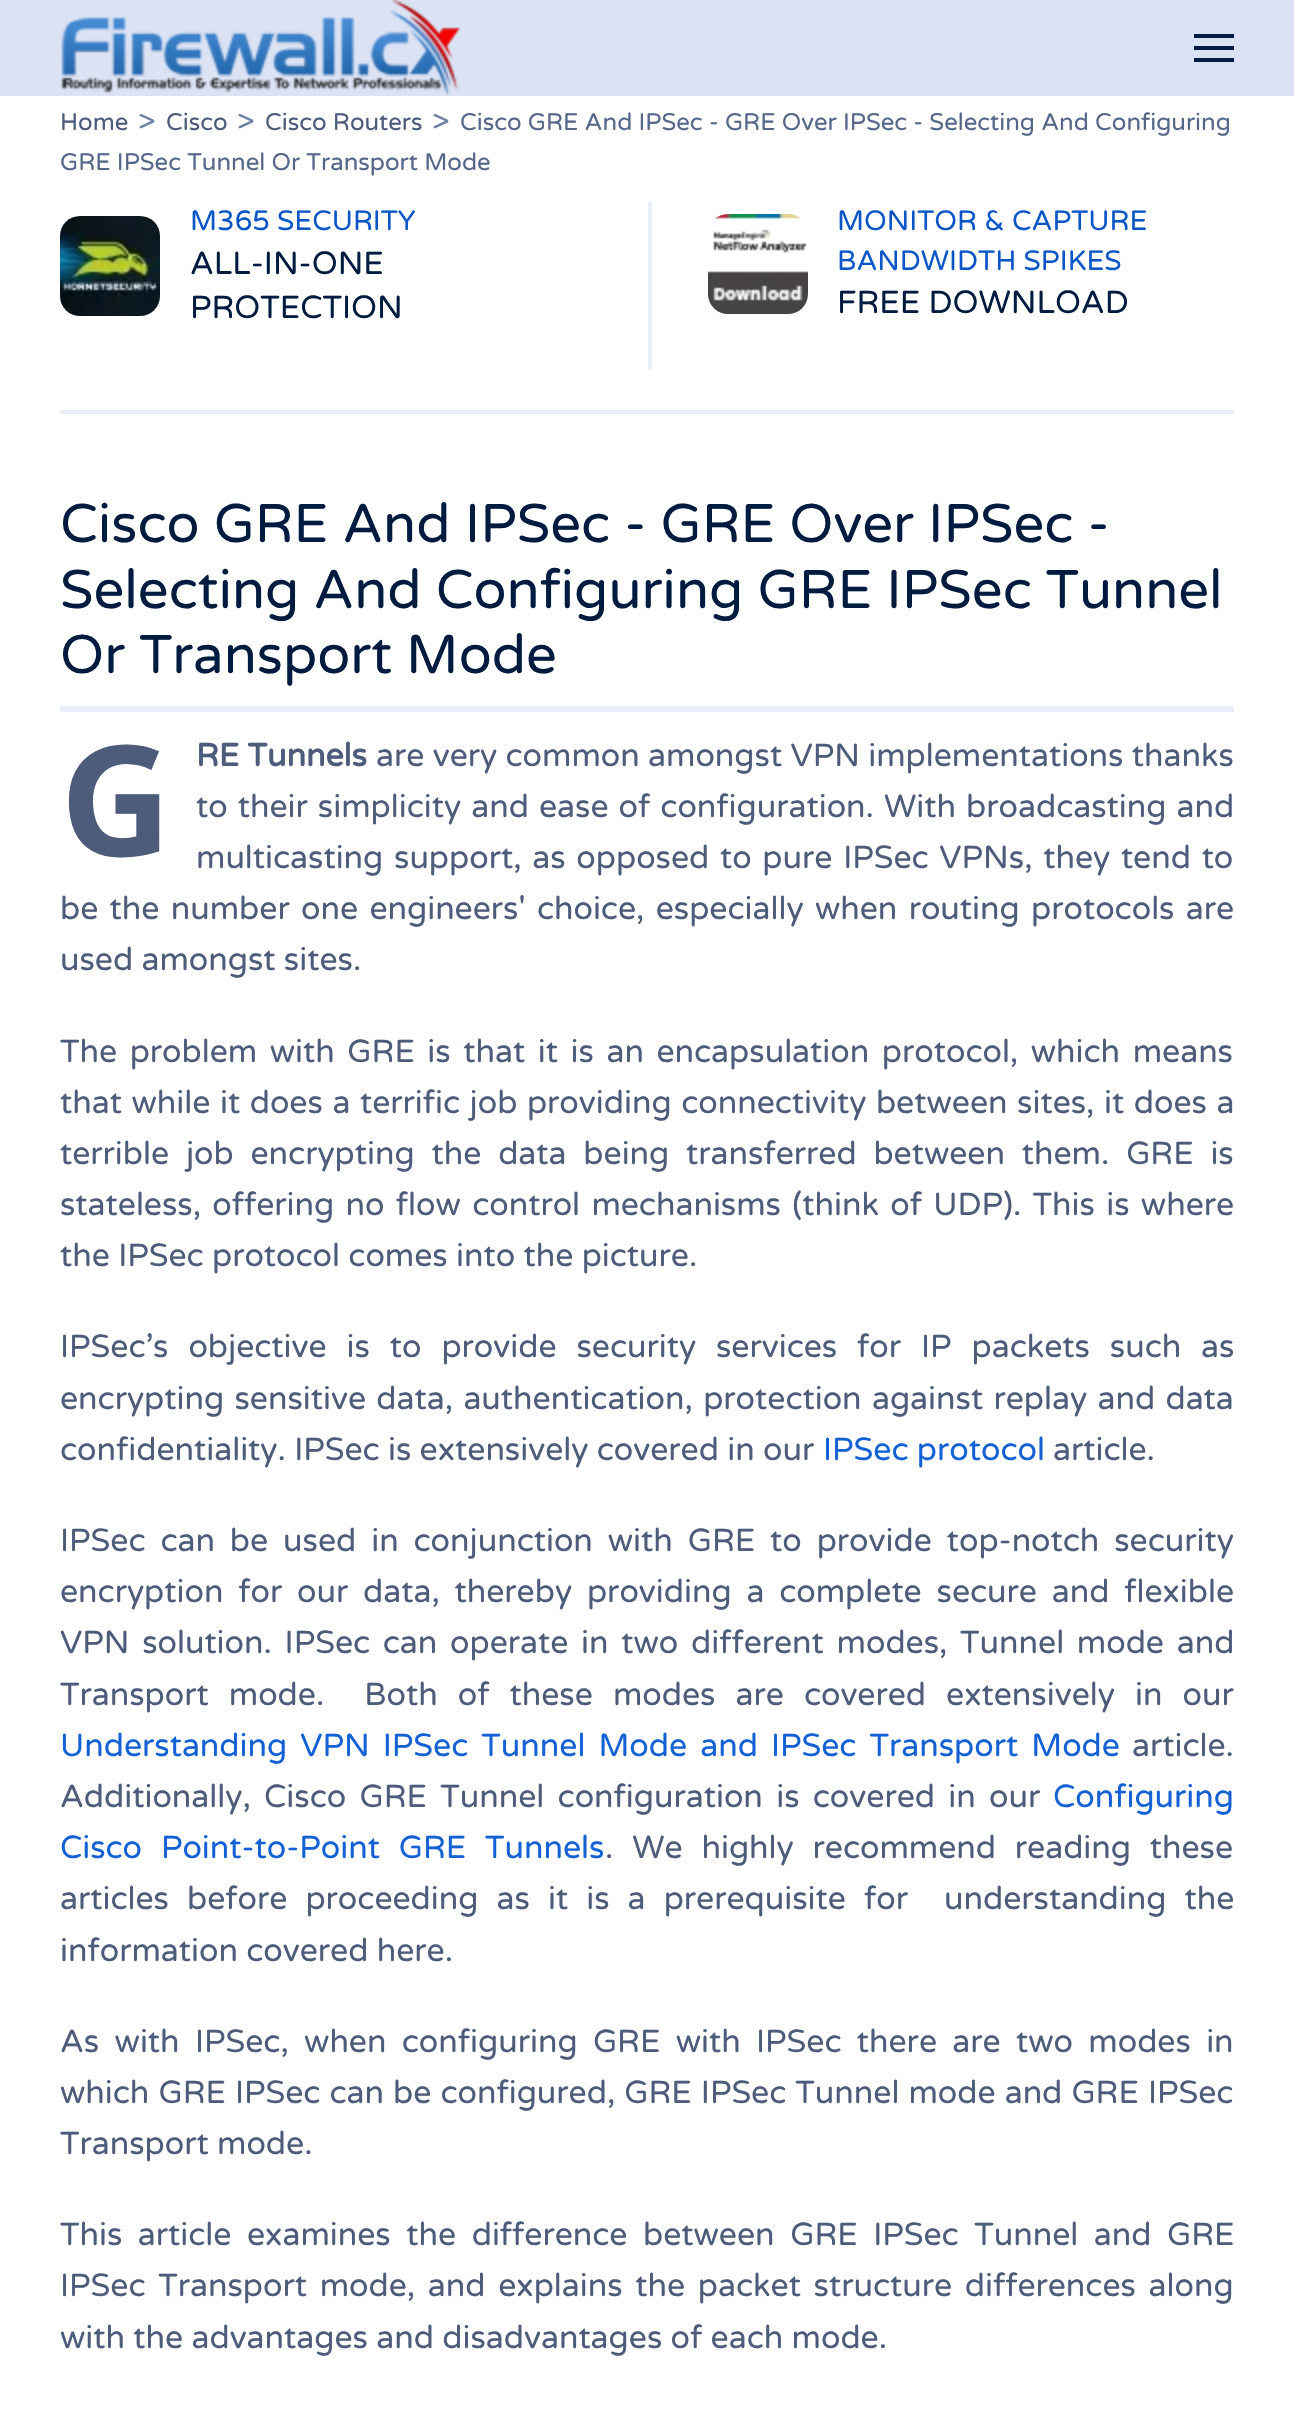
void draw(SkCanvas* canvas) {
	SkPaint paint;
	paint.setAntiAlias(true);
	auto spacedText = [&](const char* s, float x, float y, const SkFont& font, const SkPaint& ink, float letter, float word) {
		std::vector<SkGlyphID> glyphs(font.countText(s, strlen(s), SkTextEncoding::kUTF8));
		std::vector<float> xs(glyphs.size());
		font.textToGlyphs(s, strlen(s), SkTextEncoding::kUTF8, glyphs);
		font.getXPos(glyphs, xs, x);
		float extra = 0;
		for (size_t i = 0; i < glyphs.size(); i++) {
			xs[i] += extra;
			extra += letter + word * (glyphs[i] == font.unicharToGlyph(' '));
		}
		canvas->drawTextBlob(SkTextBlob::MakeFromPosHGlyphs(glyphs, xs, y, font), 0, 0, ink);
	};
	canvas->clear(0xffe9efff);
	canvas->drawImageRect(SkImages::DeferredFromEncodedData(SkData::MakeFromFileName("img1.png")), SkRect::MakeXYWH(0, 0, 1294, 96), SkSamplingOptions());
	canvas->drawImageRect(SkImages::DeferredFromEncodedData(SkData::MakeFromFileName("img2.png")), SkRect::MakeXYWH(61, 0, 399, 96), SkSamplingOptions());
	paint.setColor(0xff001b40);
	canvas->drawRect(SkRect::MakeXYWH(1194, 34, 40, 4), paint);
	canvas->drawRect(SkRect::MakeXYWH(1194, 46, 40, 4), paint);
	canvas->drawRect(SkRect::MakeXYWH(1194, 58, 40, 4), paint);
	paint.setColor(0xffffffff);
	canvas->drawRect(SkRect::MakeXYWH(0, 96, 1294, 2328), paint);
	SkFont f1(fontMgr->matchFamilyStyle("Varela Round", SkFontStyle::Normal()), 30);
	f1.setSubpixel(true);
	paint.setColor(0xff6e81a5);
	canvas->drawString(">", 432, 130, f1, paint);
	SkFont f2(fontMgr->matchFamilyStyle("Varela Round", SkFontStyle::Normal()), 24);
	f2.setSubpixel(true);
	paint.setColor(0xff56688a);
	canvas->drawString("Cisco GRE And IPSec - GRE Over IPSec - Selecting And Configuring", 460, 130, f2, paint);
	canvas->drawString("GRE IPSec Tunnel Or Transport Mode", 60, 170, f2, paint);
	paint.setColor(0xff4c5c7a);
	canvas->drawString("Home", 60, 130, f2, paint);
	paint.setColor(0xff6e81a5);
	canvas->drawString(">", 138, 130, f1, paint);
	paint.setColor(0xff4c5c7a);
	canvas->drawString("Cisco", 166, 130, f2, paint);
	paint.setColor(0xff6e81a5);
	canvas->drawString(">", 237, 130, f1, paint);
	paint.setColor(0xff4c5c7a);
	canvas->drawString("Cisco Routers", 265, 130, f2, paint);
	canvas->drawImageRect(SkImages::DeferredFromEncodedData(SkData::MakeFromFileName("img3.png")), SkRect::MakeXYWH(60, 216, 100, 100), SkSamplingOptions());
	SkFont f3(fontMgr->matchFamilyStyle("Varela Round", SkFontStyle::Normal()), 28);
	f3.setSubpixel(true);
	paint.setColor(0xff0a56c7);
	canvas->drawString("M365 SECURITY", 190, 230, f3, paint);
	SkFont f4(fontMgr->matchFamilyStyle("Varela Round", SkFontStyle::Normal()), 32);
	f4.setSubpixel(true);
	paint.setColor(0xff001b40);
	canvas->drawString("ALL-IN-ONE", 190, 274, f4, paint);
	canvas->drawString("PROTECTION", 190, 318, f4, paint);
	paint.setColor(0xffeaeef8);
	canvas->drawRect(SkRect::MakeXYWH(648, 202, 4, 168), paint);
	canvas->drawImageRect(SkImages::DeferredFromEncodedData(SkData::MakeFromFileName("img4.png")), SkRect::MakeXYWH(708, 214, 100, 100), SkSamplingOptions());
	paint.setColor(0xff0a56c7);
	canvas->drawString("MONITOR & CAPTURE", 837, 230, f3, paint);
	canvas->drawString("BANDWIDTH SPIKES", 837, 270, f3, paint);
	paint.setColor(0xff001b40);
	canvas->drawString("FREE DOWNLOAD", 837, 313, f4, paint);
	paint.setColor(0xffeaeef8);
	canvas->drawRect(SkRect::MakeXYWH(60, 410, 1174, 4), paint);
	canvas->drawRect(SkRect::MakeXYWH(60, 706, 1174, 6), paint);
	SkFont f5(fontMgr->matchFamilyStyle("Varela Round", SkFontStyle::Normal()), 54.4);
	f5.setSubpixel(true);
	paint.setColor(0xff001b40);
	canvas->drawString("Cisco GRE And IPSec - GRE Over IPSec -", 60, 542, f5, paint);
	canvas->drawString("Selecting And Configuring GRE IPSec Tunnel", 60, 608, f5, paint);
	canvas->drawString("Or Transport Mode", 60, 673, f5, paint);
	SkFont f6(fontMgr->matchFamilyStyle("Noto Sans", SkFontStyle::Bold()), 154);
	f6.setSubpixel(true);
	paint.setColor(0xff4c5c7a);
	canvas->drawString("G", 60, 856, f6, paint);
	SkFont f7(fontMgr->matchFamilyStyle("Varela Round", SkFontStyle::Bold()), 32);
	f7.setSubpixel(true);
	canvas->drawString("RE Tunnels", 196, 766, f7, paint);
	canvas->drawString("are very common amongst VPN implementations thanks", 376, 766, f4, paint);
	spacedText("to their simplicity and ease of configuration. With broadcasting and", 196, 817, f4, paint, 0, 1.75);
	spacedText("multicasting support, as opposed to pure IPSec VPNs, they tend to", 196, 868, f4, paint, 0, 2.4);
	spacedText("be the number one engineers' choice, especially when routing protocols are", 60, 919, f4, paint, 0, 3);
	canvas->drawString("used amongst sites.", 60, 970, f4, paint);
	spacedText("The problem with GRE is that it is an encapsulation protocol, which means", 60, 1062, f4, paint, 0, 4.25);
	spacedText("that while it does a terrific job providing connectivity between sites, it does a", 60, 1113, f4, paint, 0, 1.25);
	spacedText("terrible job encrypting the data being transferred between them. GRE is", 60, 1164, f4, paint, 0, 8.5);
	spacedText("stateless, offering no flow control mechanisms (think of UDP). This is where", 60, 1215, f4, paint, 0, 3);
	canvas->drawString("the IPSec protocol comes into the picture.", 60, 1266, f4, paint);
	spacedText("IPSec’s objective is to provide security services for IP packets such as", 60, 1357, f4, paint, 0, 11.6);
	spacedText("encrypting sensitive data, authentication, protection against replay and data", 60, 1409, f4, paint, 0, 2);
	canvas->drawString("confidentiality. IPSec is extensively covered in our", 60, 1460, f4, paint);
	paint.setColor(0xff1361d5);
	canvas->drawString("IPSec protocol", 823, 1460, f4, paint);
	paint.setColor(0xff4c5c7a);
	canvas->drawString("article.", 1053, 1460, f4, paint);
	spacedText("IPSec can be used in conjunction with GRE to provide top-notch security", 60, 1551, f4, paint, 0, 6.6);
	spacedText("encryption for our data, thereby providing a complete secure and flexible", 60, 1602, f4, paint, 0, 6.5);
	spacedText("VPN solution. IPSec can operate in two different modes, Tunnel mode and", 60, 1653, f4, paint, 0, 4.4);
	spacedText("Transport mode.  Both of these modes are covered extensively in our", 60, 1705, f4, paint, 0, 11.75);
	paint.setColor(0xff1361d5);
	spacedText("Understanding VPN IPSec Tunnel Mode and IPSec Transport Mode", 60, 1756, f4, paint, 0, 4.75);
	paint.setColor(0xff4c5c7a);
	canvas->drawString("article.", 1132, 1756, f4, paint);
	spacedText("Additionally, Cisco GRE Tunnel configuration is covered in our", 60, 1807, f4, paint, 0, 5);
	paint.setColor(0xff1361d5);
	canvas->drawString("Configuring", 1053, 1807, f4, paint);
	spacedText("Cisco Point-to-Point GRE Tunnels", 60, 1858, f4, paint, 0, 10.5);
	paint.setColor(0xff4c5c7a);
	spacedText(". We highly recommend reading these", 605, 1858, f4, paint, 0, 10.5);
	spacedText("articles before proceeding as it is a prerequisite for  understanding the", 60, 1909, f4, paint, 0, 9.75);
	canvas->drawString("information covered here.", 60, 1961, f4, paint);
	spacedText("As with IPSec, when configuring GRE with IPSec there are two modes in", 60, 2052, f4, paint, 0, 7);
	spacedText("which GRE IPSec can be configured, GRE IPSec Tunnel mode and GRE IPSec", 60, 2103, f4, paint, 0, 0.75);
	canvas->drawString("Transport mode.", 60, 2154, f4, paint);
	spacedText("This article examines the difference between GRE IPSec Tunnel and GRE", 60, 2245, f4, paint, 0, 7.25);
	spacedText("IPSec Transport mode, and explains the packet structure differences along", 60, 2296, f4, paint, 0, 4.4);
	canvas->drawString("with the advantages and disadvantages of each mode.", 60, 2348, f4, paint);
}
